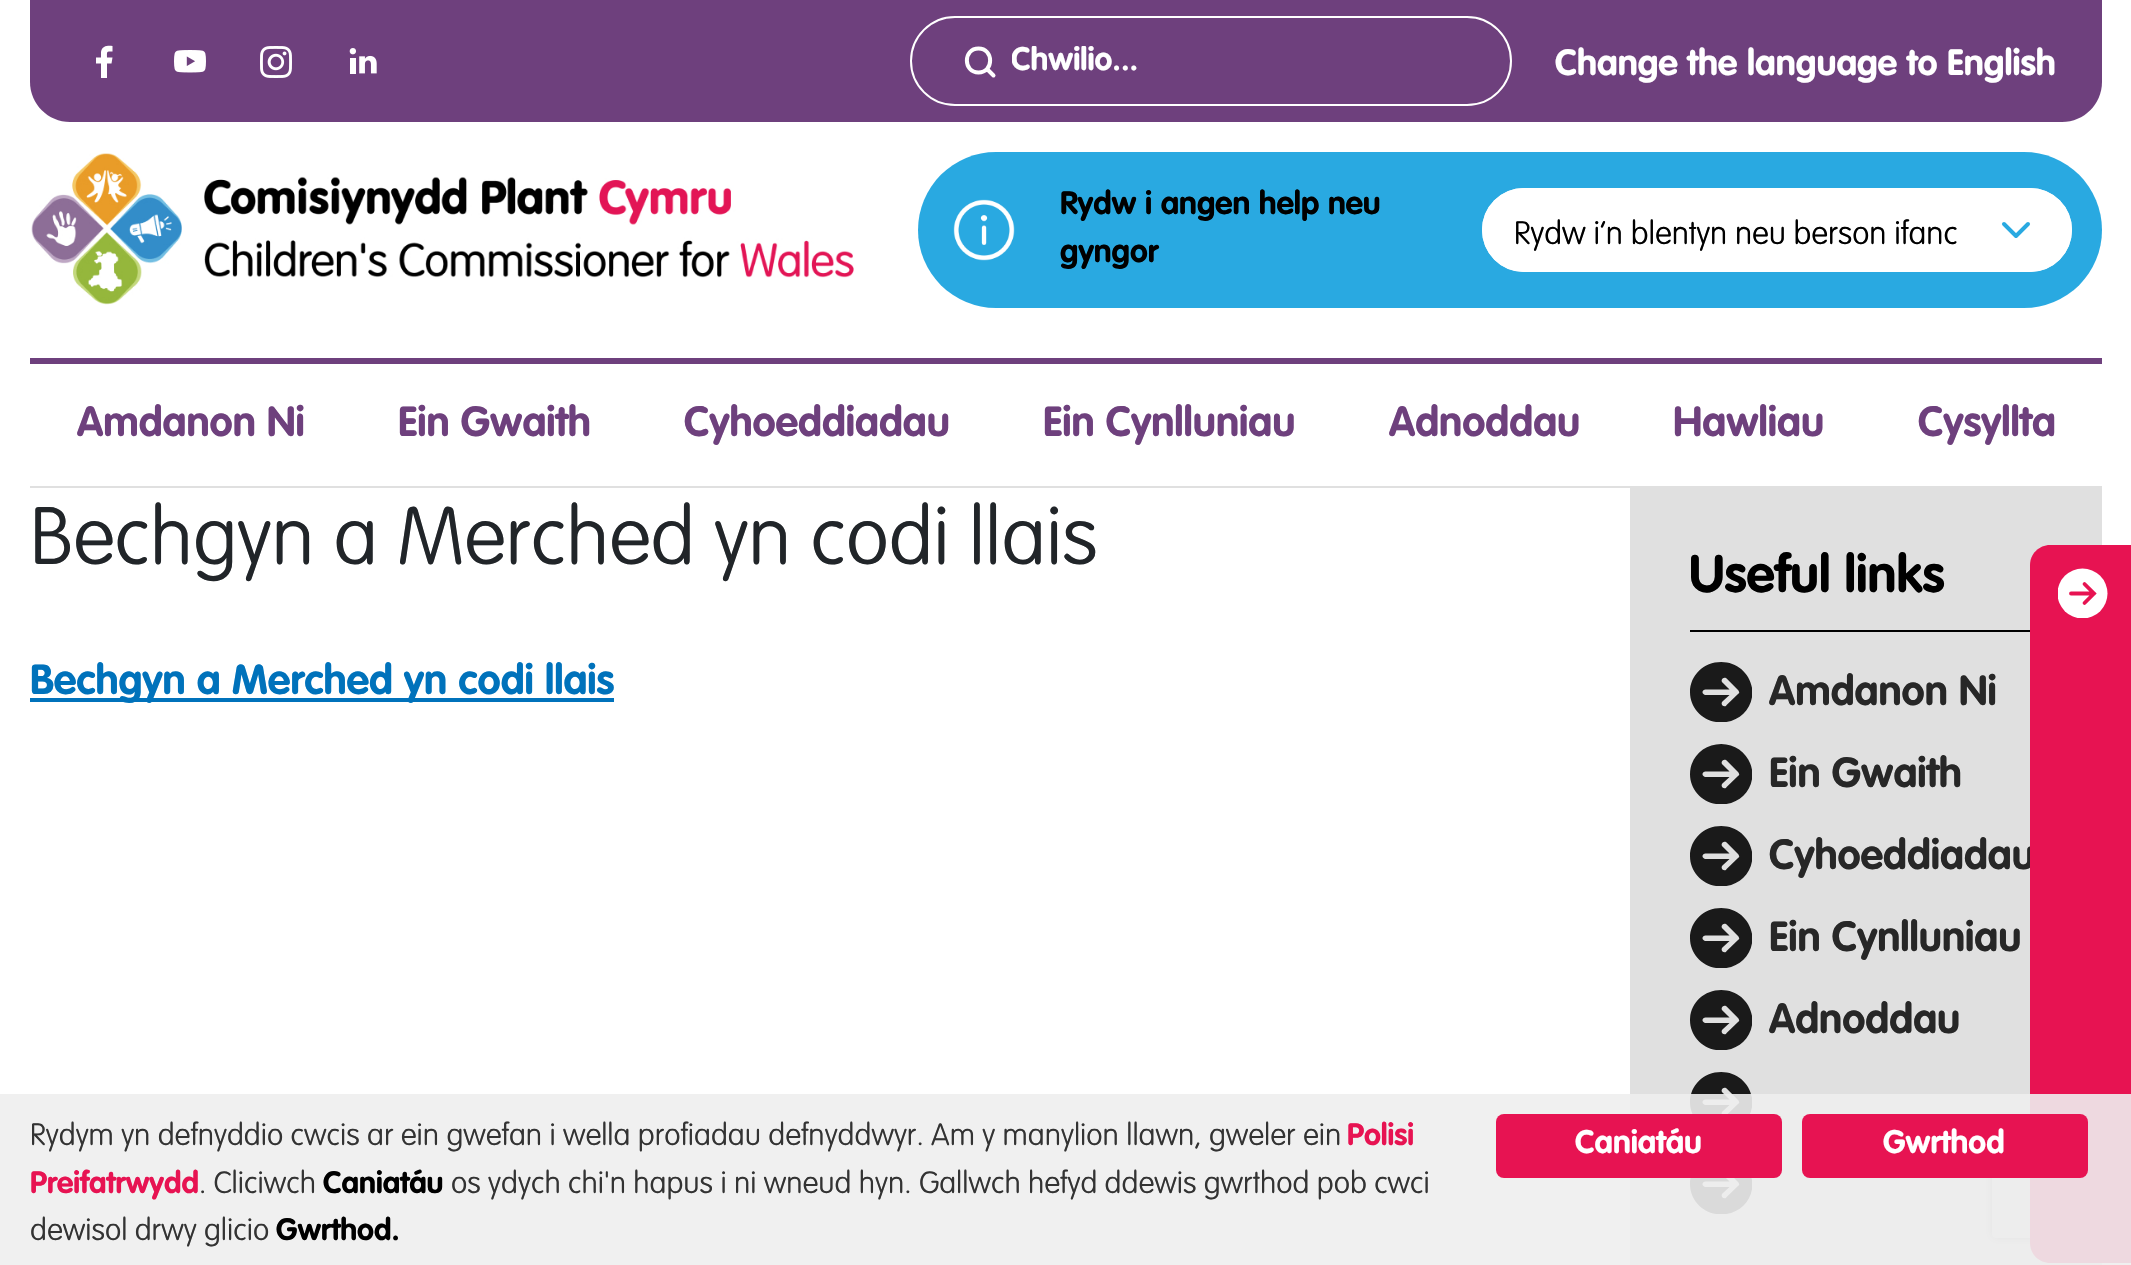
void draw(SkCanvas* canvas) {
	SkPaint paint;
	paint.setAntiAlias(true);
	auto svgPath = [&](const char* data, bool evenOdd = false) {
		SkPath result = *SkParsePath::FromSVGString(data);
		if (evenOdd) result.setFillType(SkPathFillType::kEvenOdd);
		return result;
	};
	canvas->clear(0xffffffff);
	paint.setColor(0xff6e407d);
	canvas->drawPath(svgPath("M30 0H2102V82C2102 104 2084 122 2062 122H70C48 122 30 104 30 82Z"), paint);
	paint.setColor(0xffffffff);
	canvas->drawPath(svgPath("M101 78V63.5H96V57.5H101V52C102 45.5 108 45.5 112.5 46V51.5C106 51.5 107 51.5 107 57.5H112.5L111.5 63.5H107V78Z"), paint);
	canvas->drawImageRect(SkImages::DeferredFromEncodedData(SkData::MakeFromFileName("img1.png")), SkRect::MakeXYWH(174, 50, 32, 23), SkSamplingOptions());
	canvas->drawImageRect(SkImages::DeferredFromEncodedData(SkData::MakeFromFileName("img2.png")), SkRect::MakeXYWH(260, 46, 32, 32), SkSamplingOptions());
	canvas->drawImageRect(SkImages::DeferredFromEncodedData(SkData::MakeFromFileName("img3.png")), SkRect::MakeXYWH(349, 48, 28, 26), SkSamplingOptions());
	paint.setStroke(true);
	paint.setStrokeWidth(2);
	canvas->drawRoundRect(SkRect::MakeXYWH(911, 17, 600, 88), 44, 44, paint);
	paint.setStrokeWidth(4);
	paint.setStrokeCap(SkPaint::kRound_Cap);
	paint.setStrokeJoin(SkPaint::kRound_Join);
	canvas->drawPath(svgPath("M978.5 72.5C994 72.5 994 48.5 978.5 48.5C963 48.5 963 72.5 978.5 72.5ZM993.5 75.5L987 69"), paint);
	canvas->save();
	canvas->clipRect(SkRect::MakeXYWH(1012, 46, 450, 32));
	SkFont f1(fontMgr->matchFamilyStyle("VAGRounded", SkFontStyle::Bold()), 32);
	f1.setSubpixel(true);
	paint.setStroke(false);
	canvas->drawString("Chwilio...", 1011, 70, f1, paint);
	canvas->restore();
	SkFont f2(fontMgr->matchFamilyStyle("VAGRounded", SkFontStyle::Bold()), 36);
	f2.setSubpixel(true);
	canvas->drawString("Change the language to English", 1555, 75, f2, paint);
	canvas->drawImageRect(SkImages::DeferredFromEncodedData(SkData::MakeFromFileName("img4.png")), SkRect::MakeXYWH(31, 153, 823, 152), SkSamplingOptions());
	paint.setColor(0xff29a9e1);
	canvas->drawRoundRect(SkRect::MakeXYWH(918, 152, 1184, 156), 78, 78, paint);
	canvas->drawImageRect(SkImages::DeferredFromEncodedData(SkData::MakeFromFileName("img5.png")), SkRect::MakeXYWH(953, 199, 62, 62), SkSamplingOptions());
	paint.setColor(0xff000000);
	canvas->drawString("Rydw i angen help neu", 1060, 214, f1, paint);
	canvas->drawString("gyngor", 1060, 262, f1, paint);
	paint.setColor(0xffffffff);
	canvas->drawRoundRect(SkRect::MakeXYWH(1482, 188, 590, 84), 42, 42, paint);
	paint.setStroke(true);
	paint.setColor(0xff29a9e1);
	canvas->drawPath(svgPath("M2028 224L2016 236L2004 224"), paint);
	paint.setStrokeWidth(2);
	paint.setStrokeCap(SkPaint::kButt_Cap);
	paint.setStrokeJoin(SkPaint::kMiter_Join);
	paint.setColor(0xffffffff);
	canvas->drawRoundRect(SkRect::MakeXYWH(1483, 189, 588, 82), 41, 41, paint);
	SkFont f3(fontMgr->matchFamilyStyle("VAGRounded", SkFontStyle(100, SkFontStyle::kNormal_Width, SkFontStyle::kUpright_Slant)), 32);
	f3.setSubpixel(true);
	paint.setStroke(false);
	paint.setColor(0xff000000);
	canvas->drawString("Rydw i’n blentyn neu berson ifanc", 1514, 244, f3, paint);
	paint.setColor(0xff6e407d);
	canvas->drawRect(SkRect::MakeXYWH(30, 358, 2072, 6), paint);
	paint.setColor(0xffe0e0e0);
	canvas->drawRect(SkRect::MakeXYWH(30, 486, 2072, 2), paint);
	SkFont f4(fontMgr->matchFamilyStyle("VAGRounded", SkFontStyle::Bold()), 41.6);
	f4.setSubpixel(true);
	paint.setColor(0xff6e407d);
	canvas->drawString("Amdanon Ni", 77, 436, f4, paint);
	canvas->drawString("Ein Gwaith", 398, 436, f4, paint);
	canvas->drawString("Cyhoeddiadau", 684, 436, f4, paint);
	canvas->drawString("Ein Cynlluniau", 1043, 436, f4, paint);
	canvas->drawString("Adnoddau", 1389, 436, f4, paint);
	canvas->drawString("Hawliau", 1673, 436, f4, paint);
	canvas->drawString("Cysyllta", 1918, 436, f4, paint);
	SkFont f5(fontMgr->matchFamilyStyle("VAGRounded", SkFontStyle(100, SkFontStyle::kNormal_Width, SkFontStyle::kUpright_Slant)), 80);
	f5.setSubpixel(true);
	paint.setColor(0xff212529);
	canvas->drawString("Bechgyn a Merched yn codi llais", 30, 564, f5, paint);
	paint.setColor(0xff0072bb);
	canvas->drawRect(SkRect::MakeXYWH(30, 698, 584, 4), paint);
	canvas->drawString("Bechgyn a Merched yn codi llais", 30, 694, f4, paint);
	paint.setColor(0xffe0e0e0);
	canvas->drawRect(SkRect::MakeXYWH(1630, 488, 472, 777), paint);
	paint.setColor(0xff000000);
	canvas->drawRect(SkRect::MakeXYWH(1690, 630, 340, 2), paint);
	SkFont f6(fontMgr->matchFamilyStyle("VAGRounded", SkFontStyle::Bold()), 52);
	f6.setSubpixel(true);
	canvas->drawString("Useful links", 1689, 592, f6, paint);
	canvas->drawImageRect(SkImages::DeferredFromEncodedData(SkData::MakeFromFileName("img6.png")), SkRect::MakeXYWH(1690, 662, 62, 60), SkSamplingOptions());
	paint.setColor(0xff272727);
	canvas->drawString("Amdanon Ni", 1769, 705, f4, paint);
	canvas->drawImageRect(SkImages::DeferredFromEncodedData(SkData::MakeFromFileName("img7.png")), SkRect::MakeXYWH(1690, 744, 62, 60), SkSamplingOptions());
	canvas->drawString("Ein Gwaith", 1769, 787, f4, paint);
	canvas->drawImageRect(SkImages::DeferredFromEncodedData(SkData::MakeFromFileName("img6.png")), SkRect::MakeXYWH(1690, 826, 62, 60), SkSamplingOptions());
	canvas->drawString("Cyhoeddiadau", 1769, 869, f4, paint);
	canvas->drawImageRect(SkImages::DeferredFromEncodedData(SkData::MakeFromFileName("img6.png")), SkRect::MakeXYWH(1690, 908, 62, 60), SkSamplingOptions());
	canvas->drawString("Ein Cynlluniau", 1769, 951, f4, paint);
	canvas->drawImageRect(SkImages::DeferredFromEncodedData(SkData::MakeFromFileName("img8.png")), SkRect::MakeXYWH(1690, 990, 62, 60), SkSamplingOptions());
	canvas->drawString("Adnoddau", 1769, 1033, f4, paint);
	canvas->drawImageRect(SkImages::DeferredFromEncodedData(SkData::MakeFromFileName("img9.png")), SkRect::MakeXYWH(1690, 1072, 62, 42), SkSamplingOptions());
	canvas->drawImageRect(SkImages::DeferredFromEncodedData(SkData::MakeFromFileName("img10.png")), SkRect::MakeXYWH(1690, 1178, 62, 36), SkSamplingOptions());
	canvas->save();
	canvas->clipPath(svgPath("M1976 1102H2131V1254H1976ZM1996 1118H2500C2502 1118 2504 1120 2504 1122V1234C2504 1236 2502 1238 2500 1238H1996C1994 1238 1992 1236 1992 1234V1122C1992 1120 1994 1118 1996 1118Z", true), true);
	paint.setColor(0xff808080);
	paint.setMaskFilter(SkMaskFilter::MakeBlur(kNormal_SkBlurStyle, 5));
	canvas->drawRoundRect(SkRect::MakeXYWH(1992, 1118, 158, 120), 4, 4, paint);
	paint.setMaskFilter(nullptr);
	canvas->restore();
	paint.setColor(0xffe71352);
	canvas->drawPath(svgPath("M2030 1243V565C2030 554 2039 545 2050 545H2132V1263H2050C2039 1263 2030 1254 2030 1243Z"), paint);
	canvas->save();
	canvas->clipRect(SkRect::MakeXYWH(2058, 568, 50, 50));
	paint.setColor(0xffffffff);
	canvas->drawCircle(2082.5, 593.5, 25, paint);
	canvas->restore();
	paint.setStroke(true);
	paint.setStrokeWidth(3.8);
	paint.setStrokeCap(SkPaint::kRound_Cap);
	paint.setColor(0xffe71352);
	canvas->drawPath(svgPath("M2071 593.5H2094M2084.5 584L2094 593.5L2084.5 603"), paint);
	paint.setStroke(false);
	paint.setColor(0xe6eeeeee);
	canvas->drawRect(SkRect::MakeXYWH(0, 1094, 2131, 171), paint);
	SkFont f7(fontMgr->matchFamilyStyle("VAGRounded", SkFontStyle(100, SkFontStyle::kNormal_Width, SkFontStyle::kUpright_Slant)), 30.4);
	f7.setSubpixel(true);
	paint.setColor(0xff333333);
	canvas->drawString("Rydym yn defnyddio cwcis ar ein gwefan i wella profiadau defnyddwyr. Am y manylion llawn, gweler ein", 30, 1145, f7, paint);
	SkFont f8(fontMgr->matchFamilyStyle("VAGRounded", SkFontStyle::Bold()), 30.4);
	f8.setSubpixel(true);
	paint.setColor(0xffe71352);
	canvas->drawString("Polisi", 1347, 1145, f8, paint);
	canvas->drawString("Preifatrwydd", 30, 1193, f8, paint);
	paint.setColor(0xff333333);
	canvas->drawString(". Cliciwch", 199, 1193, f7, paint);
	paint.setColor(0xff000000);
	canvas->drawString("Caniatáu", 323, 1193, f8, paint);
	paint.setColor(0xff333333);
	canvas->drawString("os ydych chi'n hapus i ni wneud hyn. Gallwch hefyd ddewis gwrthod pob cwci", 451, 1193, f7, paint);
	canvas->drawString("dewisol drwy glicio", 30, 1240, f7, paint);
	paint.setColor(0xff000000);
	canvas->drawString("Gwrthod.", 276, 1240, f8, paint);
	paint.setColor(0xffe71352);
	canvas->drawRoundRect(SkRect::MakeXYWH(1496, 1114, 286, 64), 8, 8, paint);
	paint.setColor(0xffffffff);
	canvas->drawString("Caniatáu", 1575, 1153, f1, paint);
	paint.setColor(0xffe71352);
	canvas->drawRoundRect(SkRect::MakeXYWH(1802, 1114, 286, 64), 8, 8, paint);
	paint.setColor(0xffffffff);
	canvas->drawString("Gwrthod", 1883, 1153, f1, paint);
}
